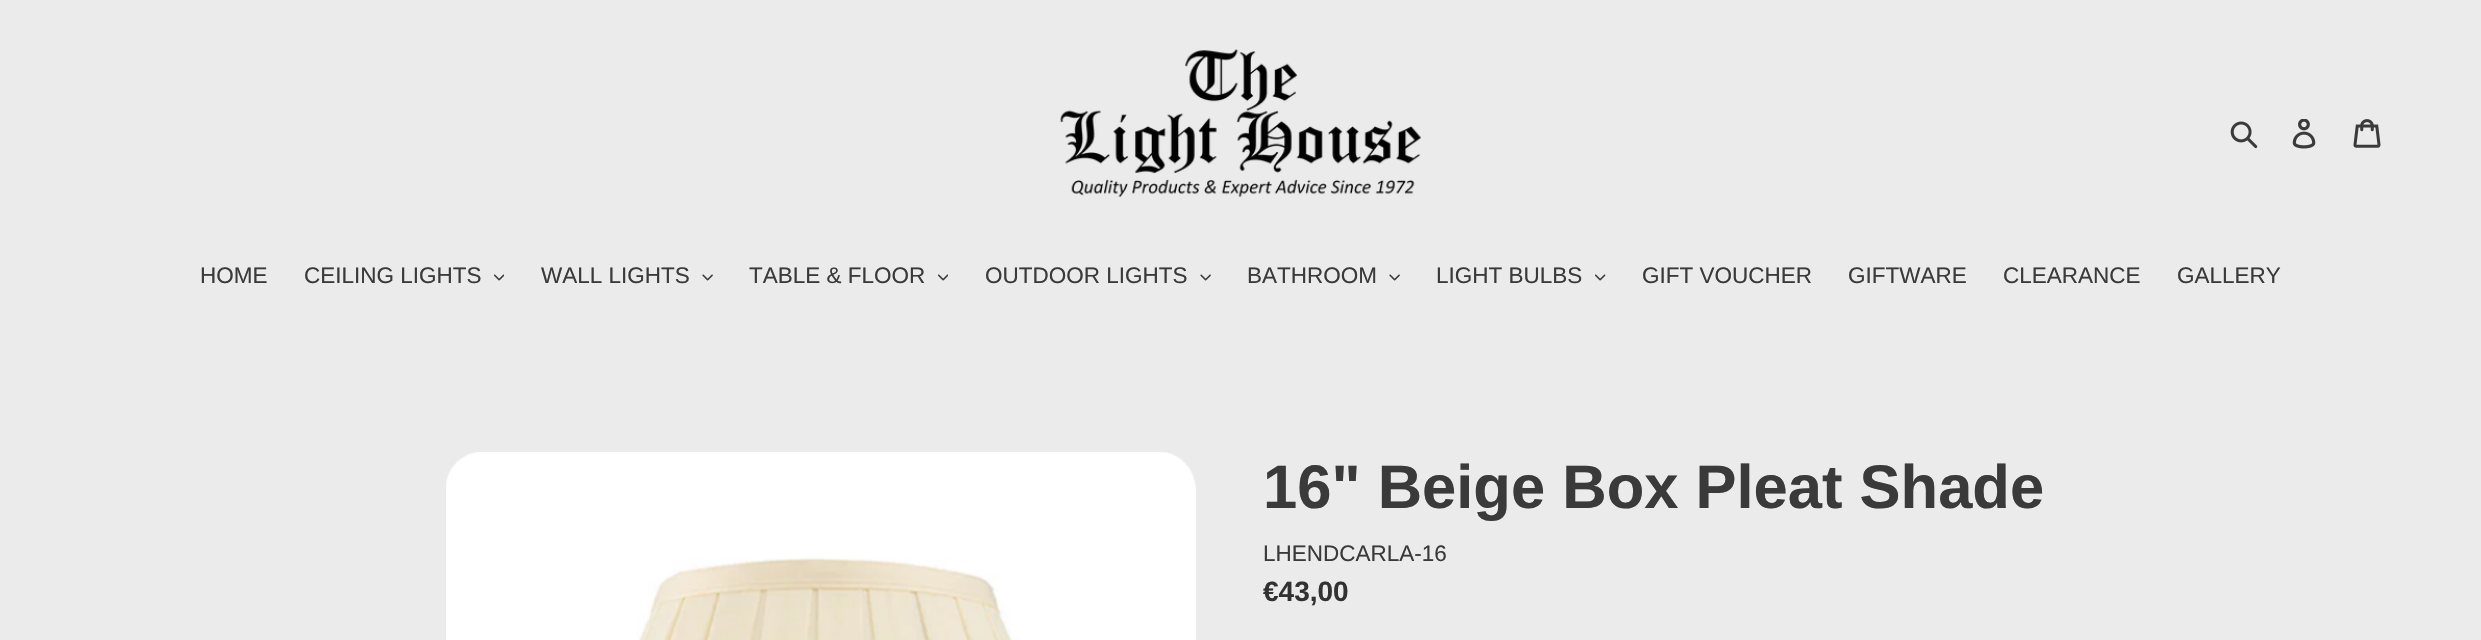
void draw(SkCanvas* canvas) {
	SkPaint paint;
	paint.setAntiAlias(true);
	canvas->clear(0xffebebeb);
	canvas->drawImageRect(SkImages::DeferredFromEncodedData(SkData::MakeFromFileName("img1.png")), SkRect::MakeXYWH(1060, 49, 361, 148), SkSamplingOptions());
	canvas->drawImageRect(SkImages::DeferredFromEncodedData(SkData::MakeFromFileName("img2.png")), SkRect::MakeXYWH(2230, 121, 28, 28), SkSamplingOptions());
	canvas->drawImageRect(SkImages::DeferredFromEncodedData(SkData::MakeFromFileName("img3.png")), SkRect::MakeXYWH(2292, 119, 24, 30), SkSamplingOptions());
	canvas->drawImageRect(SkImages::DeferredFromEncodedData(SkData::MakeFromFileName("img4.png")), SkRect::MakeXYWH(2353, 119, 28, 29), SkSamplingOptions());
	SkFont f1(fontMgr->matchFamilyStyle("Liberation Sans", SkFontStyle::Normal()), 22.5);
	f1.setSubpixel(true);
	paint.setColor(0xff3a3a3a);
	canvas->drawString("HOME", 200, 283, f1, paint);
	canvas->drawString("CEILING LIGHTS", 304, 283, f1, paint);
	canvas->drawImageRect(SkImages::DeferredFromEncodedData(SkData::MakeFromFileName("img5.png")), SkRect::MakeXYWH(494, 274, 10, 7), SkSamplingOptions());
	canvas->drawString("WALL LIGHTS", 541, 283, f1, paint);
	canvas->drawImageRect(SkImages::DeferredFromEncodedData(SkData::MakeFromFileName("img6.png")), SkRect::MakeXYWH(702, 274, 11, 7), SkSamplingOptions());
	canvas->drawString("TABLE & FLOOR", 749, 283, f1, paint);
	canvas->drawImageRect(SkImages::DeferredFromEncodedData(SkData::MakeFromFileName("img5.png")), SkRect::MakeXYWH(938, 274, 10, 7), SkSamplingOptions());
	canvas->drawString("OUTDOOR LIGHTS", 985, 283, f1, paint);
	canvas->drawImageRect(SkImages::DeferredFromEncodedData(SkData::MakeFromFileName("img6.png")), SkRect::MakeXYWH(1200, 274, 11, 7), SkSamplingOptions());
	canvas->drawString("BATHROOM", 1247, 283, f1, paint);
	canvas->drawImageRect(SkImages::DeferredFromEncodedData(SkData::MakeFromFileName("img6.png")), SkRect::MakeXYWH(1389, 274, 11, 7), SkSamplingOptions());
	canvas->drawString("LIGHT BULBS", 1436, 283, f1, paint);
	canvas->drawImageRect(SkImages::DeferredFromEncodedData(SkData::MakeFromFileName("img7.png")), SkRect::MakeXYWH(1595, 274, 11, 7), SkSamplingOptions());
	canvas->drawString("GIFT VOUCHER", 1642, 283, f1, paint);
	canvas->drawString("GIFTWARE", 1848, 283, f1, paint);
	canvas->drawString("CLEARANCE", 2003, 283, f1, paint);
	canvas->drawString("GALLERY", 2177, 283, f1, paint);
	canvas->drawImageRect(SkImages::DeferredFromEncodedData(SkData::MakeFromFileName("img8.png")), SkRect::MakeXYWH(446, 452, 750, 188), SkSamplingOptions());
	SkFont f2(fontMgr->matchFamilyStyle("Liberation Sans", SkFontStyle::Bold()), 61.5);
	f2.setSubpixel(true);
	canvas->drawString("16\" Beige Box Pleat Shade", 1263, 508, f2, paint);
	canvas->drawString("LHENDCARLA-16", 1263, 561, f1, paint);
	SkFont f3(fontMgr->matchFamilyStyle("Liberation Sans", SkFontStyle::Bold()), 28);
	f3.setSubpixel(true);
	paint.setColor(0xff333232);
	canvas->drawString("€43,00", 1263, 601, f3, paint);
}
